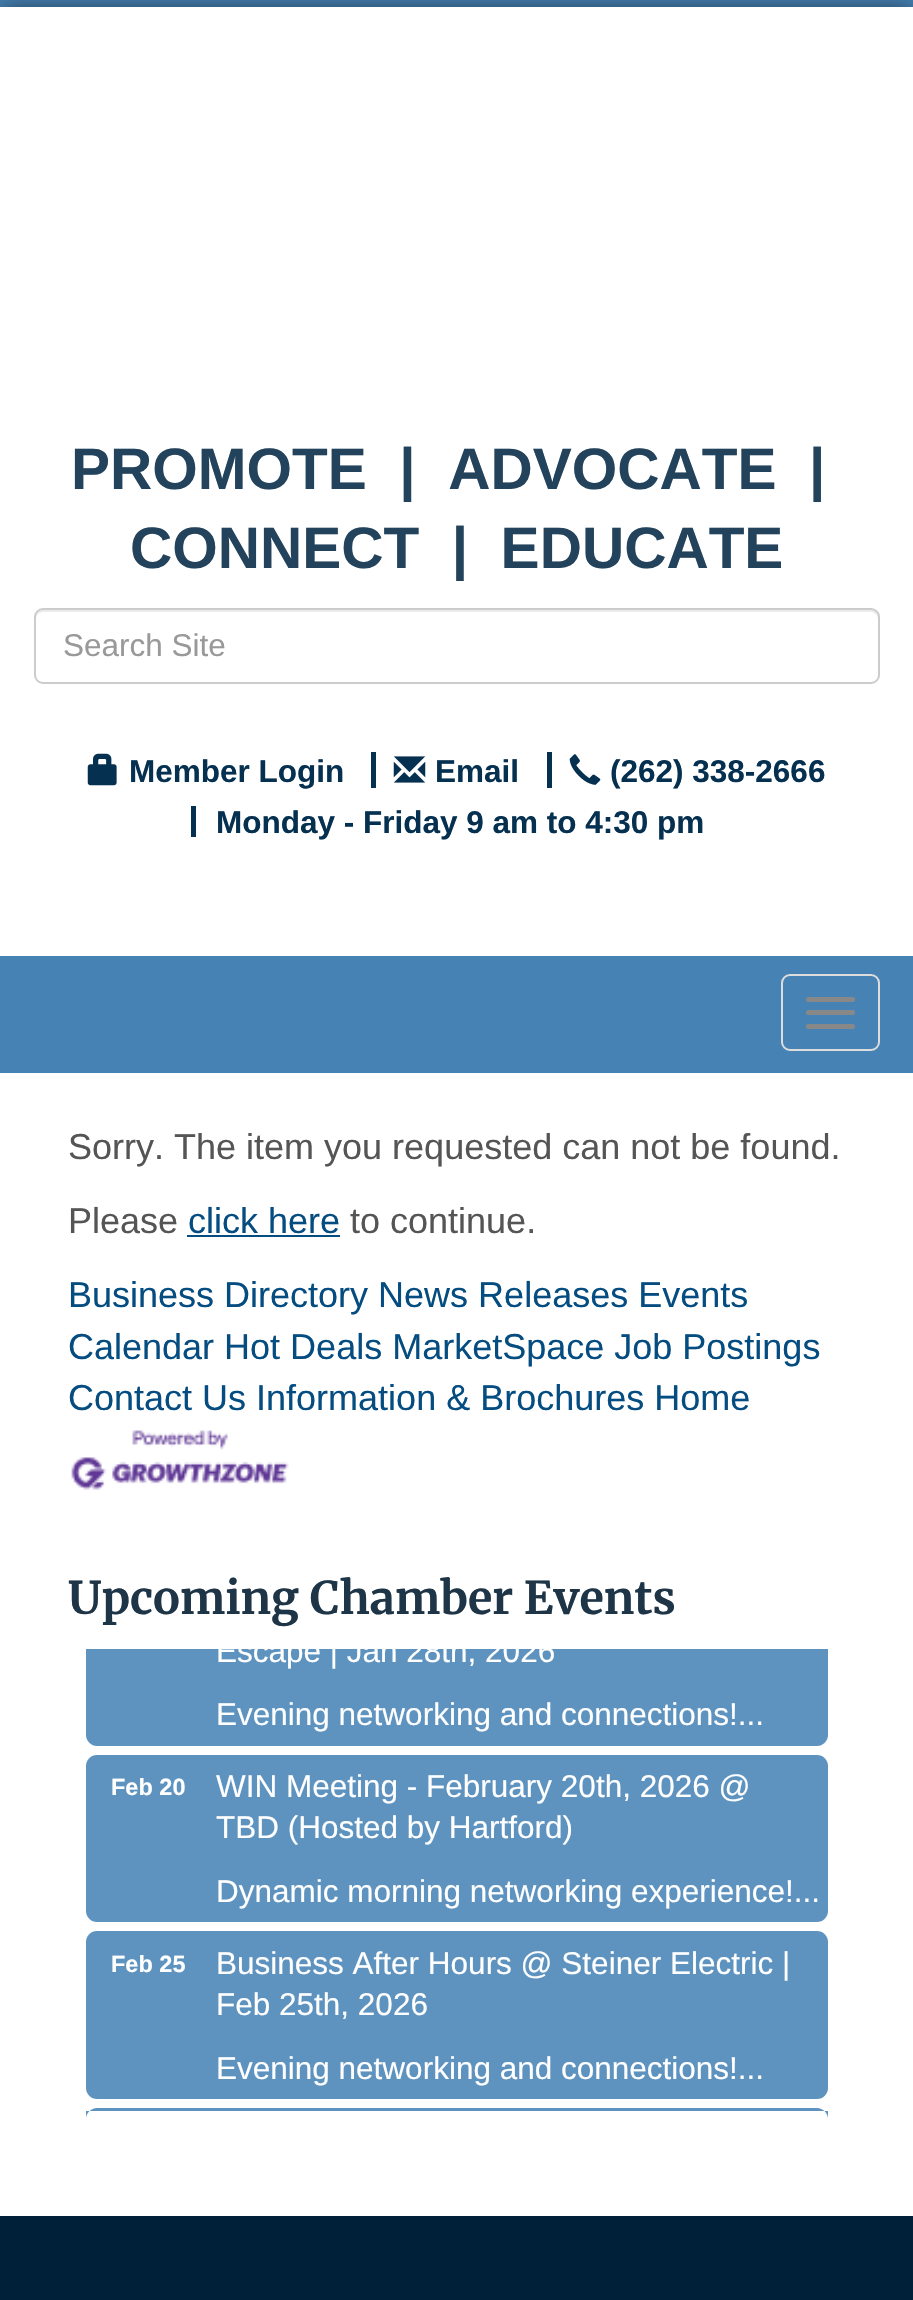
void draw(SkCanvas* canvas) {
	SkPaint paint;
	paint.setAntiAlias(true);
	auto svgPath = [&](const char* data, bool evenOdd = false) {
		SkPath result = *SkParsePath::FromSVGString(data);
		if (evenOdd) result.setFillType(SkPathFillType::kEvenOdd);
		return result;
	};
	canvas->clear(0xff4682b4);
	paint.setColor(0x80000000);
	paint.setMaskFilter(SkMaskFilter::MakeBlur(kNormal_SkBlurStyle, 11));
	canvas->drawRect(SkRect::MakeXYWH(0, 7, 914, 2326), paint);
	paint.setMaskFilter(nullptr);
	paint.setColor(0xffffffff);
	canvas->drawRect(SkRect::MakeXYWH(0, 7, 913, 2209), paint);
	SkFont f1(fontMgr->matchFamilyStyle("Liberation Sans", SkFontStyle::Bold()), 58.5);
	f1.setSubpixel(true);
	paint.setColor(0xff23425b);
	canvas->drawString("PROMOTE  |  ADVOCATE  |", 71, 489, f1, paint);
	canvas->drawString("CONNECT  |  EDUCATE", 130, 568, f1, paint);
	paint.setColor(0xffececec);
	canvas->drawPath(svgPath("M43 612H871C874 612 878 615 878 619V617C878 613 875 610 871 610H43C39 610 36 613 36 617V619C36 615 39 612 43 612Z"), paint);
	paint.setStroke(true);
	paint.setStrokeWidth(2);
	paint.setColor(0xffcccccc);
	canvas->drawRoundRect(SkRect::MakeXYWH(35, 609, 844, 74), 8, 8, paint);
	SkFont f2(fontMgr->matchFamilyStyle("Liberation Sans", SkFontStyle::Normal()), 31.5);
	f2.setSubpixel(true);
	paint.setStroke(false);
	paint.setColor(0xff999999);
	canvas->drawString("Search Site", 63, 656, f2, paint);
	canvas->drawImageRect(SkImages::DeferredFromEncodedData(SkData::MakeFromFileName("img1.png")), SkRect::MakeXYWH(87, 753, 30, 33), SkSamplingOptions());
	SkFont f3(fontMgr->matchFamilyStyle("Liberation Sans", SkFontStyle::Bold()), 31.5);
	f3.setSubpixel(true);
	paint.setColor(0xff063050);
	canvas->drawString("Member Login", 129, 782, f3, paint);
	canvas->drawRect(SkRect::MakeXYWH(371, 752, 5, 36), paint);
	canvas->drawImageRect(SkImages::DeferredFromEncodedData(SkData::MakeFromFileName("img2.png")), SkRect::MakeXYWH(393, 756, 33, 27), SkSamplingOptions());
	canvas->drawString("Email", 435, 782, f3, paint);
	canvas->drawRect(SkRect::MakeXYWH(547, 752, 5, 36), paint);
	canvas->drawImageRect(SkImages::DeferredFromEncodedData(SkData::MakeFromFileName("img3.png")), SkRect::MakeXYWH(569, 754, 32, 31), SkSamplingOptions());
	canvas->drawString("(262) 338-2666", 610, 782, f3, paint);
	canvas->drawRect(SkRect::MakeXYWH(191, 806, 5, 31), paint);
	canvas->drawString("Monday - Friday 9 am to 4:30 pm", 216, 833, f3, paint);
	paint.setColor(0xff4682b4);
	canvas->drawRect(SkRect::MakeXYWH(0, 956, 913, 117), paint);
	paint.setStroke(true);
	paint.setColor(0xffdddddd);
	canvas->drawRoundRect(SkRect::MakeXYWH(782, 975, 97, 75), 8, 8, paint);
	paint.setStroke(false);
	paint.setColor(0xff888888);
	canvas->drawRoundRect(SkRect::MakeXYWH(806, 997, 49, 5), 2.5, 2.5, paint);
	canvas->drawRoundRect(SkRect::MakeXYWH(806, 1010, 49, 5), 2.5, 2.5, paint);
	canvas->drawRoundRect(SkRect::MakeXYWH(806, 1024, 49, 5), 2.5, 2.5, paint);
	SkFont f4(fontMgr->matchFamilyStyle("Liberation Sans", SkFontStyle::Normal()), 36);
	f4.setSubpixel(true);
	paint.setColor(0xff555555);
	canvas->drawString("Sorry. The item you requested can not be found.", 68, 1159, f4, paint);
	canvas->drawString("Please", 68, 1233, f4, paint);
	paint.setColor(0xff054d81);
	canvas->drawString("click here", 188, 1233, f4, paint);
	canvas->drawRect(SkRect::MakeXYWH(187, 1235, 153, 2), paint);
	paint.setColor(0xff555555);
	canvas->drawString("to continue.", 350, 1233, f4, paint);
	paint.setColor(0xff054d81);
	canvas->drawString("Business Directory News Releases Events", 68, 1307, f4, paint);
	canvas->drawString("Calendar Hot Deals MarketSpace Job Postings", 68, 1359, f4, paint);
	canvas->drawString("Contact Us Information & Brochures Home", 68, 1410, f4, paint);
	canvas->drawImageRect(SkImages::DeferredFromEncodedData(SkData::MakeFromFileName("img4.png")), SkRect::MakeXYWH(71, 1430, 218, 60), SkSamplingOptions());
	SkFont f5(fontMgr->matchFamilyStyle("Merriweather", SkFontStyle::Bold()), 45);
	f5.setSubpixel(true);
	paint.setColor(0xff1e3547);
	canvas->drawString("Upcoming Chamber Events", 68, 1614, f5, paint);
	paint.setColor(0xff5e93c0);
	canvas->drawPath(svgPath("M86 1649H828V1735C828 1741 823 1746 817 1746H97C91 1746 86 1741 86 1735Z"), paint);
	canvas->save();
	canvas->clipRect(SkRect::MakeXYWH(86, 1649, 742, 462));
	paint.setColor(0xffffffff);
	canvas->drawString("Escape | Jan 28th, 2026", 216, 1662, f2, paint);
	canvas->restore();
	canvas->drawString("Evening networking and connections!...", 216, 1725, f2, paint);
	paint.setColor(0xff5e93c0);
	canvas->drawRoundRect(SkRect::MakeXYWH(86, 1755, 742, 167), 11, 11, paint);
	SkFont f6(fontMgr->matchFamilyStyle("Liberation Sans", SkFontStyle::Bold()), 23.5);
	f6.setSubpixel(true);
	paint.setColor(0xffffffff);
	canvas->drawString("Feb 20", 111, 1795, f6, paint);
	canvas->drawString("WIN Meeting - February 20th, 2026 @", 216, 1797, f2, paint);
	canvas->drawString("TBD (Hosted by Hartford)", 216, 1838, f2, paint);
	canvas->drawString("Dynamic morning networking experience!...", 216, 1902, f2, paint);
	paint.setColor(0xff5e93c0);
	canvas->drawRoundRect(SkRect::MakeXYWH(86, 1931, 742, 168), 11, 11, paint);
	paint.setColor(0xffffffff);
	canvas->drawString("Feb 25", 111, 1972, f6, paint);
	canvas->drawString("Business After Hours @ Steiner Electric |", 216, 1974, f2, paint);
	canvas->drawString("Feb 25th, 2026", 216, 2015, f2, paint);
	canvas->drawString("Evening networking and connections!...", 216, 2079, f2, paint);
	paint.setColor(0xff5e93c0);
	canvas->drawPath(svgPath("M97 2108H817C823 2108 828 2113 828 2119V2111H86V2119C86 2113 91 2108 97 2108Z"), paint);
	paint.setColor(0xff002039);
	canvas->drawRect(SkRect::MakeXYWH(0, 2216, 913, 84), paint);
}
